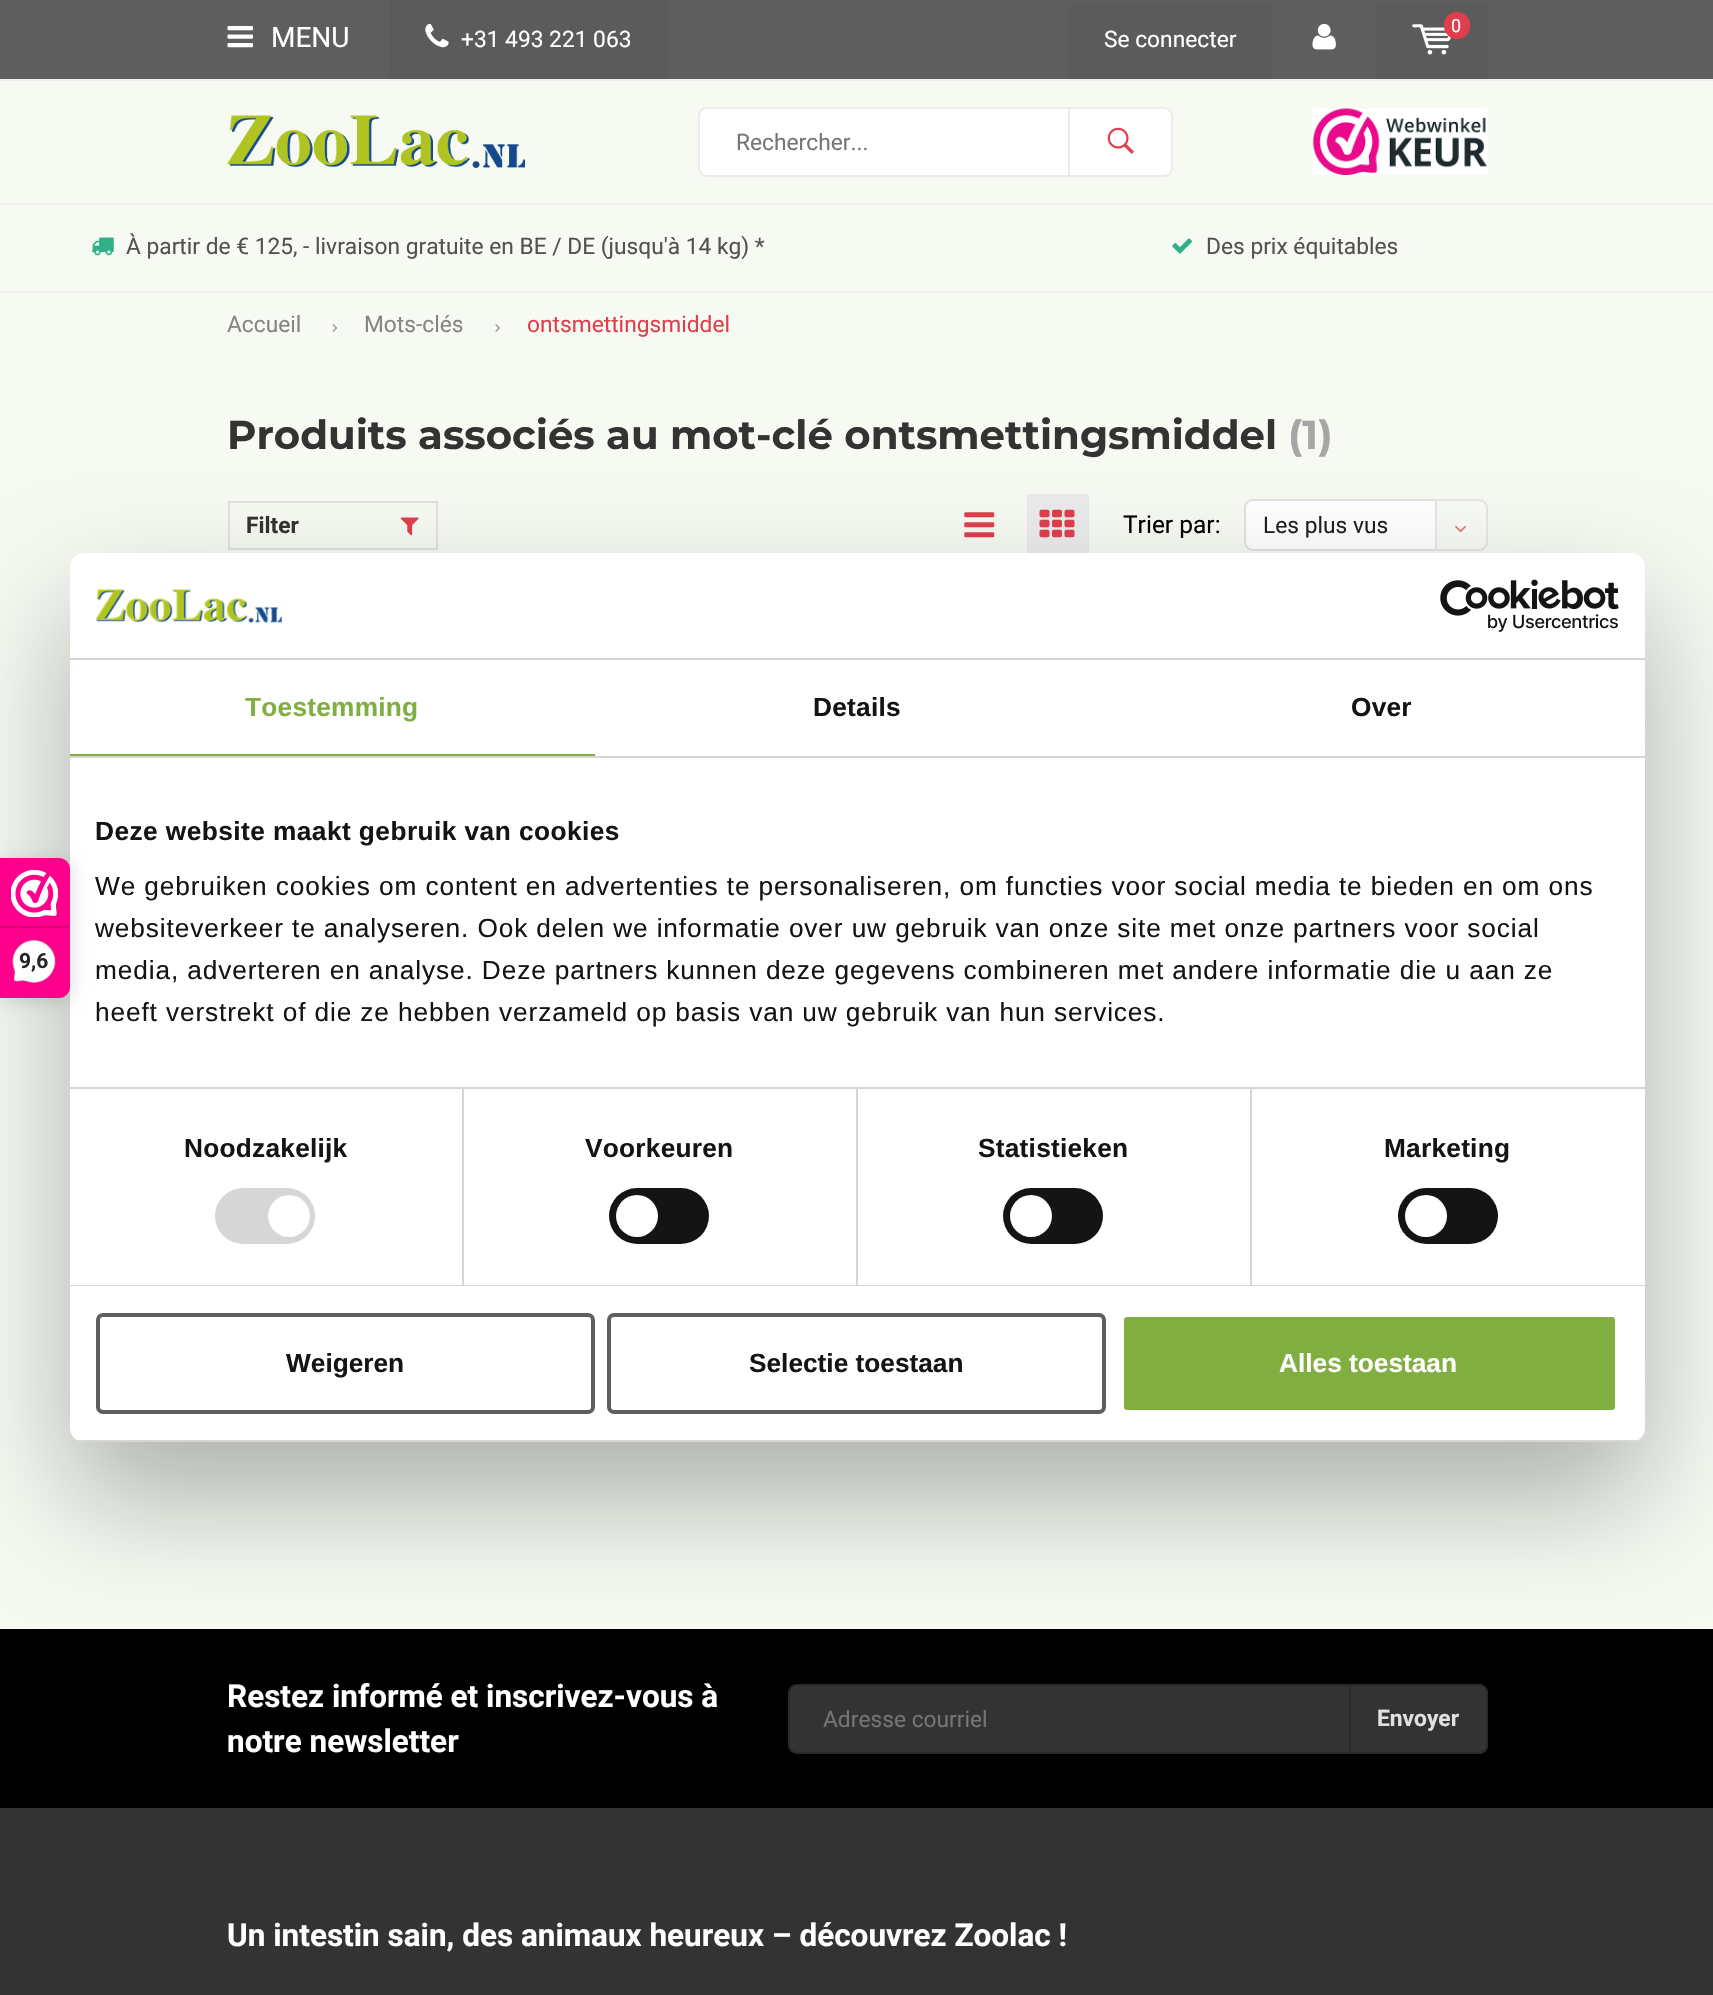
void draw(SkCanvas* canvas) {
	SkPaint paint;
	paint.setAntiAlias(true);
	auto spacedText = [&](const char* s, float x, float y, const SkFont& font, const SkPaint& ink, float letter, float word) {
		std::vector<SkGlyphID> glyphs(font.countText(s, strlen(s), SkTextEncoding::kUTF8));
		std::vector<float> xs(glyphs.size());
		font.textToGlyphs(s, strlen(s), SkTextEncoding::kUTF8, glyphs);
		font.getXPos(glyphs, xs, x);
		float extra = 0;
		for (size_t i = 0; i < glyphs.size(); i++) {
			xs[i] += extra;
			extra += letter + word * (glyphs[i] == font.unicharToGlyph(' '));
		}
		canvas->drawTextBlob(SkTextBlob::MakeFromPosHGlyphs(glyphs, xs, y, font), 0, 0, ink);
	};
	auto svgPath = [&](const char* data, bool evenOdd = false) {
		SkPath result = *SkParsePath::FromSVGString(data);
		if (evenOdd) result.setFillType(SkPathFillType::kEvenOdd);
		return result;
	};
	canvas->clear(0xfff6faf3);
	paint.setColor(0xff5e5e5e);
	canvas->drawRect(SkRect::MakeXYWH(0, 0, 1713, 79), paint);
	canvas->drawImageRect(SkImages::DeferredFromEncodedData(SkData::MakeFromFileName("img1.png")), SkRect::MakeXYWH(227, 26, 26, 22), SkSamplingOptions());
	SkFont f1(fontMgr->matchFamilyStyle("Roboto", SkFontStyle::Normal()), 28);
	f1.setSubpixel(true);
	paint.setColor(0xffffffff);
	canvas->drawString("MENU", 271, 47, f1, paint);
	paint.setColor(0xff5b5b5b);
	canvas->drawRect(SkRect::MakeXYWH(390, 0, 277, 79), paint);
	canvas->drawImageRect(SkImages::DeferredFromEncodedData(SkData::MakeFromFileName("img2.png")), SkRect::MakeXYWH(425, 23, 24, 25), SkSamplingOptions());
	SkFont f2(fontMgr->matchFamilyStyle("Roboto", SkFontStyle::Normal()), 22.75);
	f2.setSubpixel(true);
	paint.setColor(0xffffffff);
	canvas->drawString("+31 493 221 063", 461, 47, f2, paint);
	paint.setColor(0xff5b5b5b);
	canvas->drawRect(SkRect::MakeXYWH(1069, 4, 203, 75), paint);
	paint.setColor(0xffffffff);
	canvas->drawString("Se connecter", 1104, 47, f2, paint);
	canvas->drawImageRect(SkImages::DeferredFromEncodedData(SkData::MakeFromFileName("img3.png")), SkRect::MakeXYWH(1312, 23, 24, 27), SkSamplingOptions());
	paint.setColor(0xff5b5b5b);
	canvas->drawRect(SkRect::MakeXYWH(1377, 4, 111, 75), paint);
	canvas->drawImageRect(SkImages::DeferredFromEncodedData(SkData::MakeFromFileName("img4.png")), SkRect::MakeXYWH(1412, 24, 39, 31), SkSamplingOptions());
	paint.setColor(0xffe03e4c);
	canvas->drawRoundRect(SkRect::MakeXYWH(1444, 12, 26, 27), 13, 13, paint);
	SkFont f3(fontMgr->matchFamilyStyle("Roboto", SkFontStyle::Normal()), 18);
	f3.setSubpixel(true);
	paint.setColor(0xffffffff);
	canvas->drawString("0", 1451, 32, f3, paint);
	paint.setColor(0xffefefef);
	canvas->drawRect(SkRect::MakeXYWH(0, 79, 1713, 2), paint);
	canvas->drawRect(SkRect::MakeXYWH(0, 203, 1713, 2), paint);
	canvas->drawImageRect(SkImages::DeferredFromEncodedData(SkData::MakeFromFileName("img5.png")), SkRect::MakeXYWH(227, 115, 298, 53), SkSamplingOptions());
	paint.setColor(0xffffffff);
	canvas->drawRoundRect(SkRect::MakeXYWH(699, 108, 473, 68), 8, 8, paint);
	paint.setStroke(true);
	paint.setStrokeWidth(2);
	paint.setColor(0xffebebeb);
	canvas->drawRoundRect(SkRect::MakeXYWH(699, 108, 473, 68), 8, 8, paint);
	paint.setStroke(false);
	paint.setColor(0xff757575);
	canvas->drawString("Rechercher...", 736, 150, f2, paint);
	paint.setColor(0xffebebeb);
	canvas->drawRect(SkRect::MakeXYWH(1068, 107, 2, 70), paint);
	canvas->drawImageRect(SkImages::DeferredFromEncodedData(SkData::MakeFromFileName("img6.png")), SkRect::MakeXYWH(1107, 127, 27, 27), SkSamplingOptions());
	canvas->drawImageRect(SkImages::DeferredFromEncodedData(SkData::MakeFromFileName("img7.png")), SkRect::MakeXYWH(1312, 108, 176, 67), SkSamplingOptions());
	paint.setColor(0xffefefef);
	canvas->drawRect(SkRect::MakeXYWH(0, 291, 1713, 2), paint);
	canvas->drawImageRect(SkImages::DeferredFromEncodedData(SkData::MakeFromFileName("img8.png")), SkRect::MakeXYWH(91, 237, 23, 19), SkSamplingOptions());
	paint.setColor(0xff525252);
	canvas->drawString("À partir de € 125, - livraison gratuite en BE / DE (jusqu'à 14 kg) *", 126, 254, f2, paint);
	canvas->drawImageRect(SkImages::DeferredFromEncodedData(SkData::MakeFromFileName("img9.png")), SkRect::MakeXYWH(1172, 238, 20, 16), SkSamplingOptions());
	canvas->drawString("Des prix équitables", 1206, 254, f2, paint);
	paint.setColor(0xff858585);
	canvas->drawString("Accueil", 227, 332, f2, paint);
	canvas->drawImageRect(SkImages::DeferredFromEncodedData(SkData::MakeFromFileName("img10.png")), SkRect::MakeXYWH(332, 324, 5, 8), SkSamplingOptions());
	canvas->drawString("Mots-clés", 364, 332, f2, paint);
	canvas->drawImageRect(SkImages::DeferredFromEncodedData(SkData::MakeFromFileName("img11.png")), SkRect::MakeXYWH(495, 324, 5, 8), SkSamplingOptions());
	paint.setColor(0xffe03e4c);
	canvas->drawString("ontsmettingsmiddel", 527, 332, f2, paint);
	SkFont f4(fontMgr->matchFamilyStyle("Montserrat", SkFontStyle::Bold()), 40.25);
	f4.setSubpixel(true);
	paint.setColor(0xff333333);
	canvas->drawString("Produits associés au mot-clé ontsmettingsmiddel", 227, 449, f4, paint);
	paint.setColor(0xffa6a6a6);
	canvas->drawString("(1)", 1288, 449, f4, paint);
	paint.setStroke(true);
	paint.setColor(0xffe1e1e1);
	canvas->drawRect(SkRect::MakeXYWH(229, 502, 208, 47), paint);
	SkFont f5(fontMgr->matchFamilyStyle("Roboto", SkFontStyle::Bold()), 22.75);
	f5.setSubpixel(true);
	paint.setStroke(false);
	paint.setColor(0xff333333);
	canvas->drawString("Filter", 246, 533, f5, paint);
	canvas->drawImageRect(SkImages::DeferredFromEncodedData(SkData::MakeFromFileName("img12.png")), SkRect::MakeXYWH(400, 517, 19, 19), SkSamplingOptions());
	canvas->drawImageRect(SkImages::DeferredFromEncodedData(SkData::MakeFromFileName("img13.png")), SkRect::MakeXYWH(964, 512, 31, 26), SkSamplingOptions());
	paint.setColor(0xffebebeb);
	canvas->drawRect(SkRect::MakeXYWH(1027, 494, 62, 59), paint);
	canvas->drawImageRect(SkImages::DeferredFromEncodedData(SkData::MakeFromFileName("img14.png")), SkRect::MakeXYWH(1039, 509, 36, 29), SkSamplingOptions());
	SkFont f6(fontMgr->matchFamilyStyle("Roboto", SkFontStyle::Normal()), 24.5);
	f6.setSubpixel(true);
	paint.setColor(0xff000000);
	canvas->drawString("Trier par:", 1123, 533, f6, paint);
	paint.setColor(0xffffffff);
	canvas->drawRoundRect(SkRect::MakeXYWH(1245, 500, 242, 50), 8, 8, paint);
	paint.setStroke(true);
	paint.setColor(0xffe1e1e1);
	canvas->drawRoundRect(SkRect::MakeXYWH(1245, 500, 242, 50), 8, 8, paint);
	paint.setStroke(false);
	paint.setColor(0xff212121);
	canvas->drawString("Les plus vus", 1263, 533, f2, paint);
	paint.setColor(0xccf6faf3);
	canvas->drawPath(svgPath("M1435 499H1479C1484 499 1488 503 1488 508V542C1488 547 1484 551 1479 551H1435Z"), paint);
	paint.setStroke(true);
	paint.setColor(0xcce1e1e1);
	canvas->drawPath(svgPath("M1436 500H1479C1483.5 500 1487 503.5 1487 508V542C1487 546.5 1483.5 550 1479 550H1436Z"), paint);
	canvas->drawImageRect(SkImages::DeferredFromEncodedData(SkData::MakeFromFileName("img15.png")), SkRect::MakeXYWH(1455, 526, 11, 7), SkSamplingOptions());
	paint.setStroke(false);
	paint.setColor(0xff333333);
	canvas->drawRect(SkRect::MakeXYWH(0, 1808, 1713, 187), paint);
	paint.setColor(0xff000000);
	canvas->drawRect(SkRect::MakeXYWH(0, 1629, 1713, 179), paint);
	SkFont f7(fontMgr->matchFamilyStyle("Roboto", SkFontStyle::Bold()), 31.5);
	f7.setSubpixel(true);
	paint.setColor(0xffffffff);
	canvas->drawString("Restez informé et inscrivez-vous à", 227, 1707, f7, paint);
	canvas->drawString("notre newsletter", 227, 1752, f7, paint);
	paint.setColor(0xff333333);
	canvas->drawRoundRect(SkRect::MakeXYWH(788, 1684, 700, 70), 9, 9, paint);
	paint.setStroke(true);
	paint.setColor(0x33000000);
	canvas->drawRoundRect(SkRect::MakeXYWH(789, 1685, 698, 68), 8, 8, paint);
	paint.setStroke(false);
	paint.setColor(0xff757575);
	canvas->drawString("Adresse courriel", 823, 1727, f2, paint);
	paint.setColor(0xff333333);
	canvas->drawPath(svgPath("M1349 1684H1479C1484 1684 1488 1688 1488 1693V1745C1488 1750 1484 1754 1479 1754H1349Z"), paint);
	paint.setStroke(true);
	paint.setColor(0x33000000);
	canvas->drawPath(svgPath("M1350 1685H1479C1483.5 1685 1487 1688.5 1487 1693V1745C1487 1749.5 1483.5 1753 1479 1753H1350Z"), paint);
	paint.setStroke(false);
	paint.setColor(0xffe0e0e0);
	canvas->drawString("Envoyer", 1377, 1726, f5, paint);
	paint.setColor(0xffffffff);
	canvas->drawString("Un intestin sain, des animaux heureux – découvrez Zoolac !", 227, 1946, f7, paint);
	paint.setColor(0x4d000000);
	paint.setMaskFilter(SkMaskFilter::MakeBlur(kNormal_SkBlurStyle, 59.5));
	canvas->drawRoundRect(SkRect::MakeXYWH(70, 609, 1575, 889), 14, 14, paint);
	paint.setMaskFilter(nullptr);
	paint.setColor(0xffffffff);
	canvas->drawRoundRect(SkRect::MakeXYWH(70, 553, 1575, 889), 14, 14, paint);
	paint.setColor(0x26000000);
	paint.setMaskFilter(SkMaskFilter::MakeBlur(kNormal_SkBlurStyle, 9));
	canvas->drawRoundRect(SkRect::MakeXYWH(0, 861, 70, 140), 11, 11, paint);
	paint.setMaskFilter(nullptr);
	paint.setColor(0xfffe008c);
	canvas->drawPath(svgPath("M0 858H59C65 858 70 863 70 869V987C70 993 65 998 59 998H0Z"), paint);
	canvas->drawImageRect(SkImages::DeferredFromEncodedData(SkData::MakeFromFileName("img16.png")), SkRect::MakeXYWH(11, 870, 47, 47), SkSamplingOptions());
	paint.setColor(0xffd80077);
	canvas->drawRect(SkRect::MakeXYWH(0, 926, 68, 2), paint);
	canvas->drawImageRect(SkImages::DeferredFromEncodedData(SkData::MakeFromFileName("img17.png")), SkRect::MakeXYWH(12, 940, 44, 44), SkSamplingOptions());
	SkFont f8(fontMgr->matchFamilyStyle("Roboto", SkFontStyle::Bold()), 21);
	f8.setSubpixel(true);
	paint.setColor(0xff272626);
	canvas->drawString("9,6", 19, 968, f8, paint);
	paint.setColor(0xffd6d6d6);
	canvas->drawRect(SkRect::MakeXYWH(70, 658, 1575, 2), paint);
	canvas->drawImageRect(SkImages::DeferredFromEncodedData(SkData::MakeFromFileName("img18.png")), SkRect::MakeXYWH(96, 589, 186, 34), SkSamplingOptions());
	canvas->drawImageRect(SkImages::DeferredFromEncodedData(SkData::MakeFromFileName("img19.png")), SkRect::MakeXYWH(1440, 579, 179, 53), SkSamplingOptions());
	canvas->drawRect(SkRect::MakeXYWH(70, 756, 1575, 2), paint);
	paint.setColor(0xff80ae40);
	canvas->drawRect(SkRect::MakeXYWH(70, 754, 525, 2), paint);
	SkFont f9(fontMgr->matchFamilyStyle("Liberation Sans", SkFontStyle::Bold()), 26.25);
	f9.setSubpixel(true);
	spacedText("Toestemming", 245, 716, f9, paint, 0.25, 0);
	paint.setColor(0xff141414);
	spacedText("Details", 813, 716, f9, paint, 0.25, 0);
	spacedText("Over", 1351, 716, f9, paint, 0.25, 0);
	paint.setColor(0xffd6d6d6);
	canvas->drawRect(SkRect::MakeXYWH(70, 1087, 1575, 2), paint);
	paint.setColor(0xff141414);
	spacedText("Deze website maakt gebruik van cookies", 95, 840, f9, paint, 0.45, 0);
	SkFont f10(fontMgr->matchFamilyStyle("Liberation Sans", SkFontStyle::Normal()), 26.25);
	f10.setSubpixel(true);
	spacedText("We gebruiken cookies om content en advertenties te personaliseren, om functies voor social media te bieden en om ons", 95, 895, f10, paint, 0.88, 0);
	spacedText("websiteverkeer te analyseren. Ook delen we informatie over uw gebruik van onze site met onze partners voor social", 95, 937, f10, paint, 0.88, 0);
	spacedText("media, adverteren en analyse. Deze partners kunnen deze gegevens combineren met andere informatie die u aan ze", 95, 979, f10, paint, 0.88, 0);
	spacedText("heeft verstrekt of die ze hebben verzameld op basis van uw gebruik van hun services.", 95, 1021, f10, paint, 0.88, 0);
	paint.setColor(0xffd6d6d6);
	canvas->drawRect(SkRect::MakeXYWH(70, 1285, 1575, 1), paint);
	canvas->drawRect(SkRect::MakeXYWH(462, 1089, 2, 196), paint);
	paint.setColor(0xff141414);
	spacedText("Noodzakelijk", 184, 1157, f9, paint, 0.25, 0);
	paint.setColor(0xffd6d6d6);
	canvas->drawRoundRect(SkRect::MakeXYWH(215, 1188, 100, 56), 28, 28, paint);
	paint.setColor(0xffffffff);
	canvas->drawCircle(289, 1216, 21, paint);
	paint.setColor(0xffd6d6d6);
	canvas->drawRect(SkRect::MakeXYWH(856, 1089, 2, 196), paint);
	paint.setColor(0xff141414);
	spacedText("Voorkeuren", 585, 1157, f9, paint, 0.25, 0);
	canvas->drawRoundRect(SkRect::MakeXYWH(609, 1188, 100, 56), 28, 28, paint);
	paint.setColor(0xffffffff);
	canvas->drawCircle(637, 1216, 21, paint);
	paint.setColor(0xffd6d6d6);
	canvas->drawRect(SkRect::MakeXYWH(1250, 1089, 2, 196), paint);
	paint.setColor(0xff141414);
	spacedText("Statistieken", 978, 1157, f9, paint, 0.25, 0);
	canvas->drawRoundRect(SkRect::MakeXYWH(1003, 1188, 100, 56), 28, 28, paint);
	paint.setColor(0xffffffff);
	canvas->drawCircle(1031, 1216, 21, paint);
	paint.setColor(0xff141414);
	spacedText("Marketing", 1384, 1157, f9, paint, 0.25, 0);
	canvas->drawRoundRect(SkRect::MakeXYWH(1398, 1188, 100, 56), 28, 28, paint);
	paint.setColor(0xffffffff);
	canvas->drawCircle(1426, 1216, 21, paint);
	canvas->save();
	canvas->clipPath(svgPath("M84 553H1631C1638.5 553 1645 559.5 1645 567V1428C1645 1435.5 1638.5 1442 1631 1442H84C76.5 1442 70 1435.5 70 1428V567C70 559.5 76.5 553 84 553Z"), true);
	paint.setColor(0xffd6d6d6);
	canvas->drawRect(SkRect::MakeXYWH(70, 1440, 1575, 2), paint);
	canvas->restore();
	paint.setStroke(true);
	paint.setStrokeWidth(4);
	paint.setColor(0xff5e5e5e);
	canvas->drawRoundRect(SkRect::MakeXYWH(98, 1315, 495, 97), 5, 5, paint);
	paint.setStroke(false);
	paint.setColor(0xff141414);
	canvas->drawString("Weigeren", 286, 1372, f9, paint);
	paint.setStroke(true);
	paint.setColor(0xff5e5e5e);
	canvas->drawRoundRect(SkRect::MakeXYWH(609, 1315, 495, 97), 5, 5, paint);
	paint.setStroke(false);
	paint.setColor(0xff141414);
	canvas->drawString("Selectie toestaan", 749, 1372, f9, paint);
	paint.setColor(0xff80ae40);
	canvas->drawRoundRect(SkRect::MakeXYWH(1122, 1315, 495, 97), 5, 5, paint);
	paint.setStroke(true);
	paint.setColor(0xffffffff);
	canvas->drawRoundRect(SkRect::MakeXYWH(1122, 1315, 495, 97), 5, 5, paint);
	paint.setStroke(false);
	canvas->drawString("Alles toestaan", 1279, 1372, f9, paint);
}
